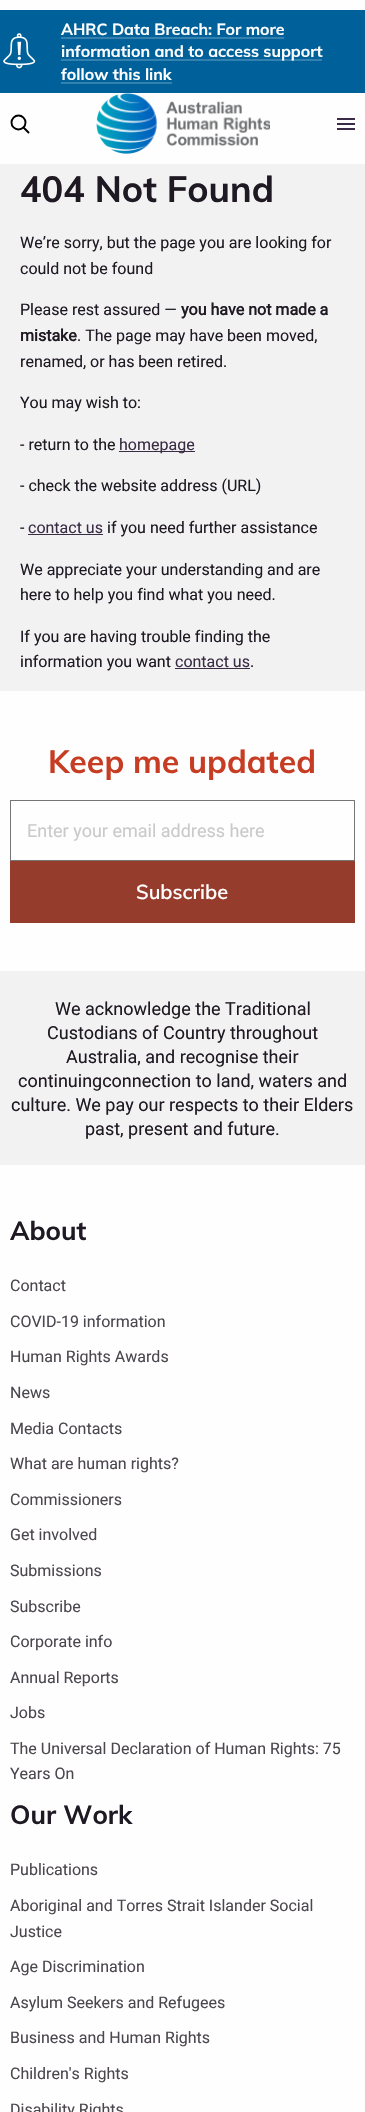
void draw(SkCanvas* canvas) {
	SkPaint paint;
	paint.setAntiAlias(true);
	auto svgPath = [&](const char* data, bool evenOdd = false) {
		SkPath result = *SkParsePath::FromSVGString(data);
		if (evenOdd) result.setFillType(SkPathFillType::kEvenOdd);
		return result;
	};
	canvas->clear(0xfff2f2f2);
	paint.setColor(0xfffefefe);
	canvas->drawRect(SkRect::MakeXYWH(0, 0, 365, 164), paint);
	paint.setColor(0xff00619a);
	canvas->drawRect(SkRect::MakeXYWH(0, 10, 365, 83), paint);
	canvas->drawImageRect(SkImages::DeferredFromEncodedData(SkData::MakeFromFileName("img1.png")), SkRect::MakeXYWH(3, 33, 33, 36), SkSamplingOptions());
	SkFont f1(fontMgr->matchFamilyStyle("Muli", SkFontStyle::Bold()), 16);
	f1.setSubpixel(true);
	paint.setColor(0xffffffff);
	canvas->drawString("AHRC Data Breach: For more", 61, 35, f1, paint);
	paint.setColor(0xff3381ae);
	canvas->drawRect(SkRect::MakeXYWH(61, 37, 223, 2), paint);
	canvas->drawRect(SkRect::MakeXYWH(61, 59, 261, 2), paint);
	paint.setColor(0xffffffff);
	canvas->drawString("information and to access support", 61, 57, f1, paint);
	canvas->drawString("follow this link", 61, 80, f1, paint);
	paint.setColor(0xff3381ae);
	canvas->drawRect(SkRect::MakeXYWH(61, 82, 111, 2), paint);
	paint.setStroke(true);
	paint.setStrokeWidth(1.9);
	paint.setColor(0xff000000);
	canvas->drawCircle(18.5, 122.5, 7, paint);
	paint.setStrokeCap(SkPaint::kRound_Cap);
	paint.setStrokeJoin(SkPaint::kRound_Join);
	canvas->drawPath(svgPath("M28.5 132.5L23.5 127.5"), paint);
	canvas->drawImageRect(SkImages::DeferredFromEncodedData(SkData::MakeFromFileName("img2.png")), SkRect::MakeXYWH(96, 93, 174, 61), SkSamplingOptions());
	canvas->drawImageRect(SkImages::DeferredFromEncodedData(SkData::MakeFromFileName("img3.png")), SkRect::MakeXYWH(337, 118, 18, 12), SkSamplingOptions());
	SkFont f2(fontMgr->matchFamilyStyle("Muli", SkFontStyle::Bold()), 36);
	f2.setSubpixel(true);
	paint.setStroke(false);
	paint.setColor(0xff1f1923);
	canvas->drawString("404 Not Found", 20, 202, f2, paint);
	SkFont f3(fontMgr->matchFamilyStyle("Roboto", SkFontStyle::Normal()), 16);
	f3.setSubpixel(true);
	canvas->drawString("We’re sorry, but the page you are looking for", 20, 248, f3, paint);
	canvas->drawString("could not be found", 20, 274, f3, paint);
	canvas->drawString("Please rest assured —", 20, 315, f3, paint);
	SkFont f4(fontMgr->matchFamilyStyle("Roboto", SkFontStyle::Bold()), 16);
	f4.setSubpixel(true);
	canvas->drawString("you have not made a", 181, 315, f4, paint);
	canvas->drawString("mistake", 20, 341, f4, paint);
	canvas->drawString(". The page may have been moved,", 77, 341, f3, paint);
	canvas->drawString("renamed, or has been retired.", 20, 367, f3, paint);
	canvas->drawString("You may wish to:", 20, 408, f3, paint);
	canvas->drawString("- return to the", 20, 450, f3, paint);
	paint.setColor(0xff3b2c46);
	canvas->drawRect(SkRect::MakeXYWH(119, 451, 76, 1), paint);
	canvas->drawString("homepage", 119, 450, f3, paint);
	paint.setColor(0xff1f1923);
	canvas->drawString("- check the website address (URL)", 20, 491, f3, paint);
	canvas->drawString("-", 20, 533, f3, paint);
	paint.setColor(0xff3b2c46);
	canvas->drawString("contact us", 28, 533, f3, paint);
	canvas->drawRect(SkRect::MakeXYWH(28, 534, 75, 1), paint);
	paint.setColor(0xff1f1923);
	canvas->drawString("if you need further assistance", 107, 533, f3, paint);
	canvas->drawString("We appreciate your understanding and are", 20, 575, f3, paint);
	canvas->drawString("here to help you find what you need.", 20, 600, f3, paint);
	canvas->drawString("If you are having trouble finding the", 20, 642, f3, paint);
	canvas->drawString("information you want", 20, 667, f3, paint);
	paint.setColor(0xff3b2c46);
	canvas->drawString("contact us", 175, 667, f3, paint);
	canvas->drawRect(SkRect::MakeXYWH(175, 668, 75, 1), paint);
	paint.setColor(0xff1f1923);
	canvas->drawString(".", 250, 667, f3, paint);
	paint.setColor(0xfffefefe);
	canvas->drawRect(SkRect::MakeXYWH(0, 691, 365, 1421), paint);
	paint.setColor(0xfff2f2f2);
	canvas->drawRect(SkRect::MakeXYWH(0, 971, 365, 194), paint);
	SkFont f5(fontMgr->matchFamilyStyle("Muli", SkFontStyle::Bold()), 32);
	f5.setSubpixel(true);
	paint.setColor(0xffc73d24);
	canvas->drawString("Keep me updated", 48, 773, f5, paint);
	paint.setStroke(true);
	paint.setStrokeWidth(1);
	paint.setStrokeCap(SkPaint::kButt_Cap);
	paint.setStrokeJoin(SkPaint::kMiter_Join);
	paint.setColor(0xff757575);
	canvas->drawRect(SkRect::MakeXYWH(10.5, 800.5, 344, 60), paint);
	SkFont f6(fontMgr->matchFamilyStyle("Roboto", SkFontStyle::Normal()), 18);
	f6.setSubpixel(true);
	paint.setStroke(false);
	paint.setColor(0xffcacaca);
	canvas->drawString("Enter your email address here", 27, 837, f6, paint);
	paint.setColor(0xff963c2c);
	canvas->drawRect(SkRect::MakeXYWH(10, 861, 345, 62), paint);
	SkFont f7(fontMgr->matchFamilyStyle("Muli", SkFontStyle(600, SkFontStyle::kNormal_Width, SkFontStyle::kUpright_Slant)), 20);
	f7.setSubpixel(true);
	paint.setColor(0xffffffff);
	canvas->drawString("Subscribe", 136, 899, f7, paint);
	paint.setColor(0xff1f1923);
	canvas->drawString("We acknowledge the Traditional", 55, 1015, f6, paint);
	canvas->drawString("Custodians of Country throughout", 47, 1039, f6, paint);
	canvas->drawString("Australia, and recognise their", 66, 1063, f6, paint);
	canvas->drawString("continuingconnection to land, waters and", 18, 1087, f6, paint);
	canvas->drawString("culture. We pay our respects to their Elders", 11, 1111, f6, paint);
	canvas->drawString("past, present and future.", 85, 1135, f6, paint);
	SkFont f8(fontMgr->matchFamilyStyle("Muli", SkFontStyle::Bold()), 26);
	f8.setSubpixel(true);
	canvas->drawString("About", 10, 1240, f8, paint);
	paint.setColor(0xff4c474f);
	canvas->drawString("Contact", 10, 1291, f3, paint);
	canvas->drawString("COVID-19 information", 10, 1327, f3, paint);
	canvas->drawString("Human Rights Awards", 10, 1362, f3, paint);
	canvas->drawString("News", 10, 1398, f3, paint);
	canvas->drawString("Media Contacts", 10, 1434, f3, paint);
	canvas->drawString("What are human rights?", 10, 1469, f3, paint);
	canvas->drawString("Commissioners", 10, 1505, f3, paint);
	canvas->drawString("Get involved", 10, 1540, f3, paint);
	canvas->drawString("Submissions", 10, 1576, f3, paint);
	canvas->drawString("Subscribe", 10, 1612, f3, paint);
	canvas->drawString("Corporate info", 10, 1647, f3, paint);
	canvas->drawString("Annual Reports", 10, 1683, f3, paint);
	canvas->drawString("Jobs", 10, 1718, f3, paint);
	canvas->drawString("The Universal Declaration of Human Rights: 75", 10, 1754, f3, paint);
	canvas->drawString("Years On", 10, 1779, f3, paint);
	paint.setColor(0xff1f1923);
	canvas->drawString("Our Work", 10, 1824, f8, paint);
	paint.setColor(0xff4c474f);
	canvas->drawString("Publications", 10, 1875, f3, paint);
	canvas->drawString("Aboriginal and Torres Strait Islander Social", 10, 1911, f3, paint);
	canvas->drawString("Justice", 10, 1937, f3, paint);
	canvas->drawString("Age Discrimination", 10, 1972, f3, paint);
	canvas->drawString("Asylum Seekers and Refugees", 10, 2008, f3, paint);
	canvas->drawString("Business and Human Rights", 10, 2043, f3, paint);
	canvas->drawString("Children's Rights", 10, 2079, f3, paint);
	canvas->drawString("Disability Rights", 10, 2115, f3, paint);
}
